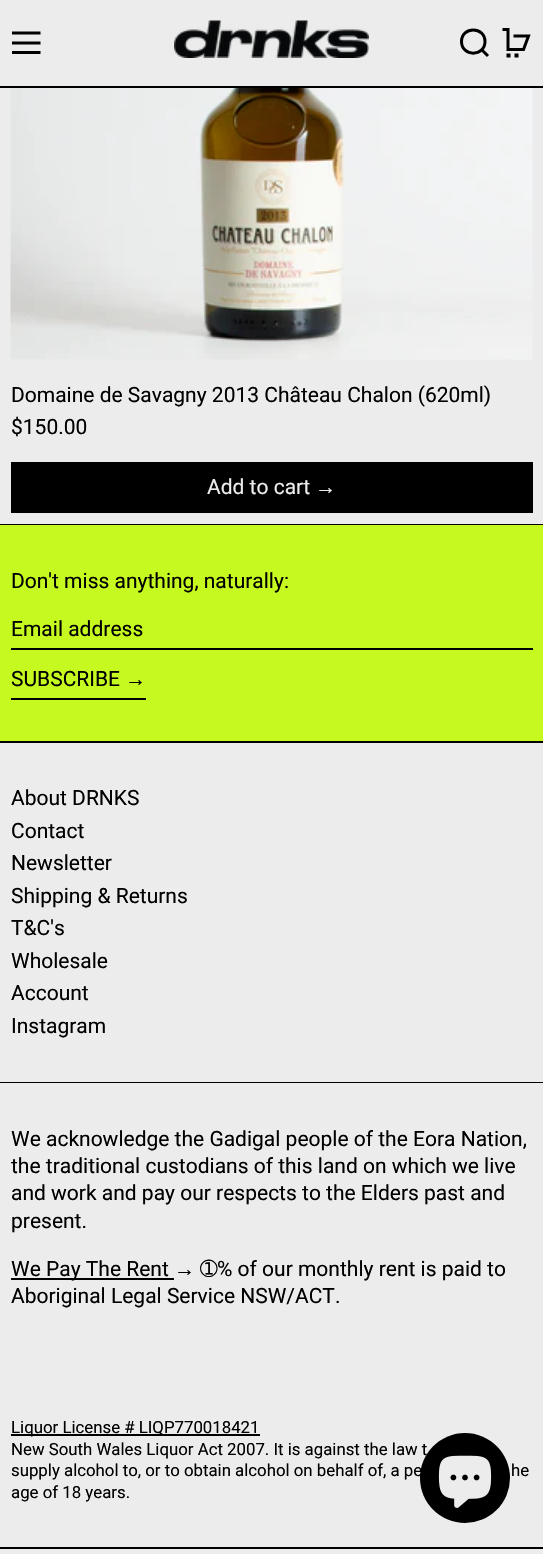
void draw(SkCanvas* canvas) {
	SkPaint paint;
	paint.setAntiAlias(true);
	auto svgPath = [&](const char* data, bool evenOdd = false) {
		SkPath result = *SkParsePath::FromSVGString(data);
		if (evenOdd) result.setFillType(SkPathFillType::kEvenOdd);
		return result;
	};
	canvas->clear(0xff000000);
	paint.setColor(0xffececec);
	canvas->drawRect(SkRect::MakeXYWH(0, 0, 543, 86), paint);
	paint.setStroke(true);
	paint.setStrokeWidth(3);
	paint.setColor(0xff000000);
	canvas->drawPath(svgPath("M12 33H40.5M12 43H40.5M12 52.5H40.5"), paint);
	canvas->drawImageRect(SkImages::DeferredFromEncodedData(SkData::MakeFromFileName("img1.png")), SkRect::MakeXYWH(174, 20, 195, 38), SkSamplingOptions());
	canvas->drawPath(svgPath("M461.5 41.5C461.5 57 485 57 485 41.5C485 26 461.5 26 461.5 41.5ZM482 50L488 56"), paint);
	canvas->drawPath(svgPath("M502.5 29.5H508V49.5H523.5L528.5 36H513.5M508 56V55H509V56ZM516 56V55H517V56Z"), paint);
	paint.setStroke(false);
	paint.setColor(0xffececec);
	canvas->drawRect(SkRect::MakeXYWH(0, 88, 543, 436), paint);
	canvas->drawImageRect(SkImages::DeferredFromEncodedData(SkData::MakeFromFileName("img2.png")), SkRect::MakeXYWH(10, 88, 523, 272), SkSamplingOptions());
	SkFont f1(fontMgr->matchFamilyStyle("Roboto", SkFontStyle::Normal()), 21);
	f1.setSubpixel(true);
	paint.setColor(0xff000000);
	canvas->drawString("Domaine de Savagny 2013 Château Chalon (620ml)", 11, 402, f1, paint);
	canvas->drawString("$150.00", 11, 434, f1, paint);
	canvas->drawRect(SkRect::MakeXYWH(11, 462, 522, 51), paint);
	paint.setColor(0xffececec);
	canvas->drawString("Add to cart", 207, 494, f1, paint);
	SkFont f2(fontMgr->matchFamilyStyle("Liberation Sans", SkFontStyle::Normal()), 21);
	f2.setSubpixel(true);
	canvas->drawString("→", 315, 494, f2, paint);
	canvas->drawRect(SkRect::MakeXYWH(0, 1549, 543, 5), paint);
	paint.setColor(0xffc6f91f);
	canvas->drawRect(SkRect::MakeXYWH(0, 525, 543, 216), paint);
	paint.setColor(0xff000000);
	canvas->drawString("Don't miss anything, naturally:", 11, 588, f1, paint);
	canvas->drawRect(SkRect::MakeXYWH(11, 648, 522, 2), paint);
	canvas->drawString("Email address", 11, 636, f1, paint);
	canvas->drawRect(SkRect::MakeXYWH(11, 698, 135, 2), paint);
	canvas->drawString("SUBSCRIBE", 11, 686, f1, paint);
	canvas->drawString("→", 125, 686, f2, paint);
	paint.setColor(0xffececec);
	canvas->drawRect(SkRect::MakeXYWH(0, 743, 543, 339), paint);
	paint.setColor(0xff000000);
	canvas->drawString("About DRNKS", 11, 805, f1, paint);
	canvas->drawString("Contact", 11, 838, f1, paint);
	canvas->drawString("Newsletter", 11, 870, f1, paint);
	canvas->drawString("Shipping & Returns", 11, 903, f1, paint);
	canvas->drawString("T&C's", 11, 935, f1, paint);
	canvas->drawString("Wholesale", 11, 968, f1, paint);
	canvas->drawString("Account", 11, 1000, f1, paint);
	canvas->drawString("Instagram", 11, 1033, f1, paint);
	paint.setColor(0xffececec);
	canvas->drawRect(SkRect::MakeXYWH(0, 1083, 543, 464), paint);
	paint.setColor(0xff000000);
	canvas->drawString("We acknowledge the Gadigal people of the Eora Nation,", 11, 1146, f1, paint);
	canvas->drawString("the traditional custodians of this land on which we live", 11, 1173, f1, paint);
	canvas->drawString("and work and pay our respects to the Elders past and", 11, 1200, f1, paint);
	canvas->drawString("present.", 11, 1228, f1, paint);
	canvas->drawRect(SkRect::MakeXYWH(11, 1278, 163, 2), paint);
	canvas->drawString("We Pay The Rent", 11, 1276, f1, paint);
	canvas->drawString("→", 174, 1276, f2, paint);
	SkFont f3(fontMgr->matchFamilyStyle("DejaVu Sans", SkFontStyle::Normal()), 21);
	f3.setSubpixel(true);
	canvas->drawString("➀", 200, 1276, f3, paint);
	canvas->drawString("% of our monthly rent is paid to", 217, 1276, f1, paint);
	canvas->drawString("Aboriginal Legal Service NSW/ACT.", 11, 1303, f1, paint);
	canvas->drawRect(SkRect::MakeXYWH(11, 1434, 249, 2), paint);
	SkFont f4(fontMgr->matchFamilyStyle("Roboto", SkFontStyle::Normal()), 16.8);
	f4.setSubpixel(true);
	canvas->drawString("Liquor License # LIQP770018421", 11, 1433, f4, paint);
	canvas->drawString("New South Wales Liquor Act 2007. It is against the law t", 11, 1455, f4, paint);
	canvas->drawString("supply alcohol to, or to obtain alcohol on behalf of, a pe", 11, 1476, f4, paint);
	canvas->drawString("he", 511, 1476, f4, paint);
	canvas->drawString("age of 18 years.", 11, 1498, f4, paint);
	canvas->drawCircle(465, 1478, 45, paint);
	canvas->drawImageRect(SkImages::DeferredFromEncodedData(SkData::MakeFromFileName("img3.png")), SkRect::MakeXYWH(438, 1455, 54, 53), SkSamplingOptions());
}
